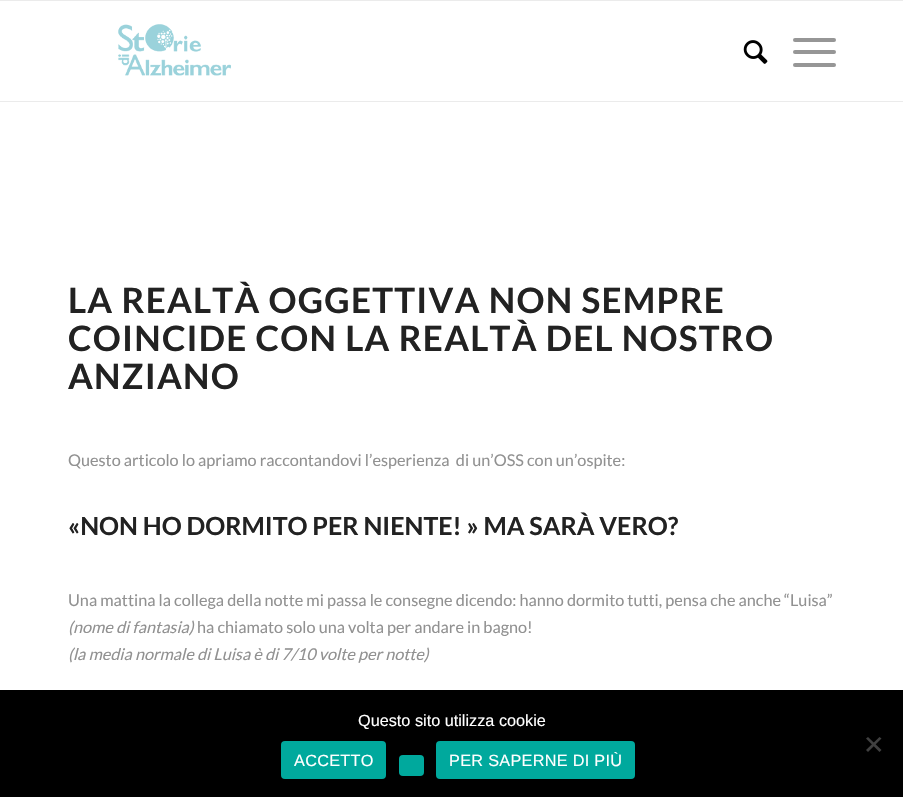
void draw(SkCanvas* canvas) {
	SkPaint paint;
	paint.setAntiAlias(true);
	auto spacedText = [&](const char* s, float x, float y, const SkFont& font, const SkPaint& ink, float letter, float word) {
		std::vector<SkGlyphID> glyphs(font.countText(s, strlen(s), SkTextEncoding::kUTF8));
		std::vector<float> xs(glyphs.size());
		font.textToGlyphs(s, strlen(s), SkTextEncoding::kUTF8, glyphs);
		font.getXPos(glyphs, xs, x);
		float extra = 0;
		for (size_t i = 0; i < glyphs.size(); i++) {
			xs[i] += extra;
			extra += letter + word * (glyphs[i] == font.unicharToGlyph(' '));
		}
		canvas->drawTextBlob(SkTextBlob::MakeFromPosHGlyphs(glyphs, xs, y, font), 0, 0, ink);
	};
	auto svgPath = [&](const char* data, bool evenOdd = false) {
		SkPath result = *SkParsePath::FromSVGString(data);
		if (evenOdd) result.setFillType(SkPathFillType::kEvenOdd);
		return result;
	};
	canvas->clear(0xffffffff);
	paint.setColor(0xffebebeb);
	canvas->drawRect(SkRect::MakeXYWH(0, 0, 903, 1), paint);
	canvas->drawRect(SkRect::MakeXYWH(0, 101, 903, 1), paint);
	canvas->drawImageRect(SkImages::DeferredFromEncodedData(SkData::MakeFromFileName("img1.png")), SkRect::MakeXYWH(118, 24, 113, 52), SkSamplingOptions());
	canvas->drawImageRect(SkImages::DeferredFromEncodedData(SkData::MakeFromFileName("img2.png")), SkRect::MakeXYWH(743, 40, 25, 24), SkSamplingOptions());
	paint.setColor(0xff969696);
	canvas->drawRoundRect(SkRect::MakeXYWH(793, 50, 43, 4), 2, 2, paint);
	canvas->drawRoundRect(SkRect::MakeXYWH(793, 38, 43, 4), 2, 2, paint);
	canvas->drawRoundRect(SkRect::MakeXYWH(793, 63, 43, 4), 2, 2, paint);
	SkFont f1(fontMgr->matchFamilyStyle("Lato", SkFontStyle::Bold()), 35);
	f1.setSubpixel(true);
	paint.setColor(0xff222222);
	spacedText("LA REALTÀ OGGETTIVA NON SEMPRE", 68, 313, f1, paint, 1.25, 0);
	spacedText("COINCIDE CON LA REALTÀ DEL NOSTRO", 68, 351, f1, paint, 1.25, 0);
	spacedText("ANZIANO", 68, 389, f1, paint, 1.25, 0);
	SkFont f2(fontMgr->matchFamilyStyle("Lato", SkFontStyle::Normal()), 16.25);
	f2.setSubpixel(true);
	paint.setColor(0xff919191);
	canvas->drawString("Questo articolo lo apriamo raccontandovi l’esperienza  di un’OSS con un’ospite:", 68, 466, f2, paint);
	SkFont f3(fontMgr->matchFamilyStyle("Lato", SkFontStyle::Bold()), 25);
	f3.setSubpixel(true);
	paint.setColor(0xff222222);
	canvas->drawString("«NON HO DORMITO PER NIENTE! » MA SARÀ VERO?", 68, 535, f3, paint);
	paint.setColor(0xff919191);
	canvas->drawString("Una mattina la collega della notte mi passa le consegne dicendo: hanno dormito tutti, pensa che anche “Luisa”", 68, 606, f2, paint);
	SkFont f4(fontMgr->matchFamilyStyle("Lato", SkFontStyle::Italic()), 16.25);
	f4.setSubpixel(true);
	canvas->drawString("(nome di fantasia)", 68, 633, f4, paint);
	canvas->drawString("ha chiamato solo una volta per andare in bagno!", 197, 633, f2, paint);
	canvas->drawString("(la media normale di Luisa è di 7/10 volte per notte)", 68, 660, f4, paint);
	paint.setColor(0xff000000);
	canvas->drawRect(SkRect::MakeXYWH(0, 690, 903, 107), paint);
	SkFont f5(fontMgr->matchFamilyStyle("Liberation Sans", SkFontStyle::Normal()), 16.25);
	f5.setSubpixel(true);
	paint.setColor(0xffffffff);
	canvas->drawString("Questo sito utilizza cookie", 358, 726, f5, paint);
	paint.setColor(0xff404040);
	canvas->drawPath(svgPath("M879.5 737L881.5 738.5L868 752L866 750Z"), paint);
	canvas->drawPath(svgPath("M866 738.5L868 737L881.5 750L879.5 752Z"), paint);
	paint.setColor(0xff00a99d);
	canvas->drawRoundRect(SkRect::MakeXYWH(281, 741, 105, 38), 4, 4, paint);
	paint.setColor(0xffffffff);
	spacedText("ACCETTO", 294, 766, f5, paint, 0.3, 0);
	paint.setColor(0xff00a99d);
	canvas->drawRoundRect(SkRect::MakeXYWH(399, 755, 25, 21), 4, 4, paint);
	canvas->drawRoundRect(SkRect::MakeXYWH(436, 741, 199, 38), 4, 4, paint);
	paint.setColor(0xffffffff);
	spacedText("PER SAPERNE DI PIÙ", 449, 766, f5, paint, 0.3, 0);
}
